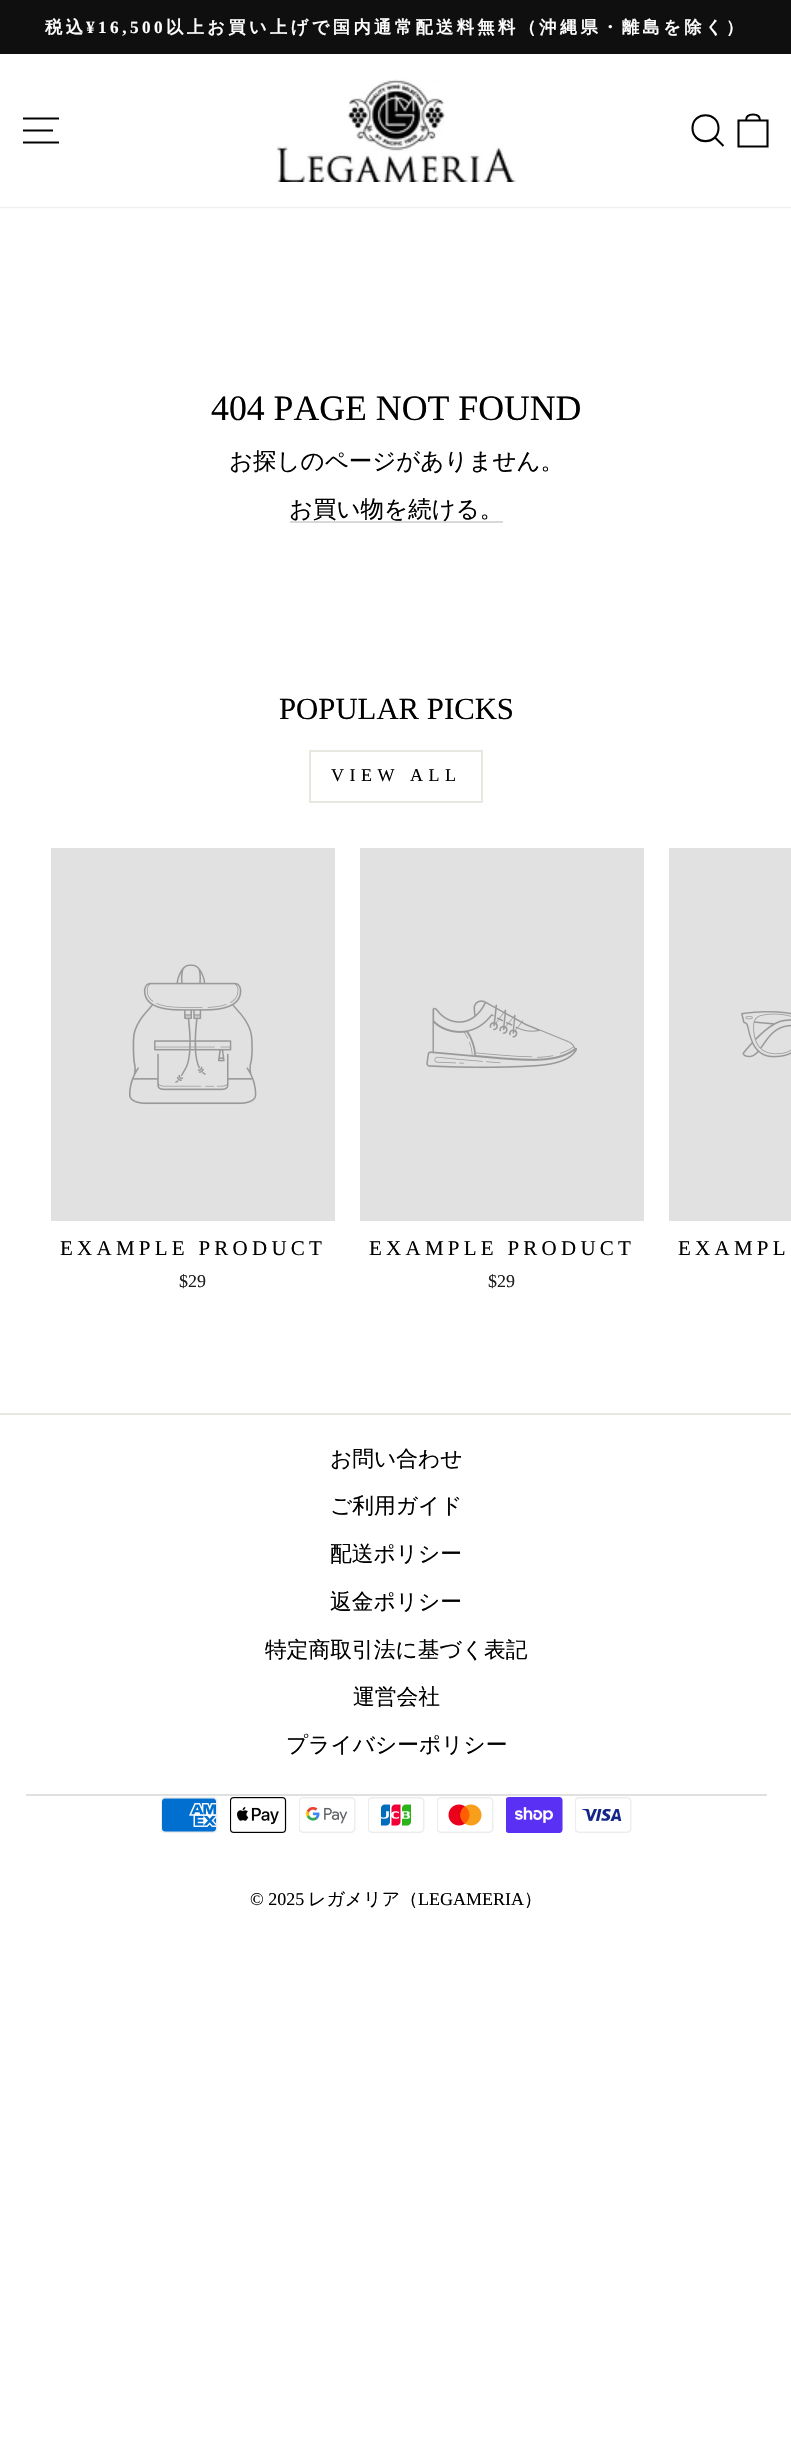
void draw(SkCanvas* canvas) {
	SkPaint paint;
	paint.setAntiAlias(true);
	auto spacedText = [&](const char* s, float x, float y, const SkFont& font, const SkPaint& ink, float letter, float word) {
		std::vector<SkGlyphID> glyphs(font.countText(s, strlen(s), SkTextEncoding::kUTF8));
		std::vector<float> xs(glyphs.size());
		font.textToGlyphs(s, strlen(s), SkTextEncoding::kUTF8, glyphs);
		font.getXPos(glyphs, xs, x);
		float extra = 0;
		for (size_t i = 0; i < glyphs.size(); i++) {
			xs[i] += extra;
			extra += letter + word * (glyphs[i] == font.unicharToGlyph(' '));
		}
		canvas->drawTextBlob(SkTextBlob::MakeFromPosHGlyphs(glyphs, xs, y, font), 0, 0, ink);
	};
	auto svgPath = [&](const char* data, bool evenOdd = false) {
		SkPath result = *SkParsePath::FromSVGString(data);
		if (evenOdd) result.setFillType(SkPathFillType::kEvenOdd);
		return result;
	};
	canvas->clear(0xffffffff);
	paint.setColor(0xff0f0f0f);
	canvas->drawRect(SkRect::MakeXYWH(0, 0, 791, 54), paint);
	SkFont f1(fontMgr->matchFamilyStyle("WenQuanYi Zen Hei", SkFontStyle::Bold()), 17.2);
	f1.setSubpixel(true);
	paint.setColor(0xffffffff);
	spacedText("税込", 45, 33, f1, paint, 3.45, 0);
	SkFont f2(fontMgr->matchFamilyStyle("Liberation Serif", SkFontStyle::Bold()), 17.2);
	f2.setSubpixel(true);
	spacedText("¥16,500", 86, 33, f2, paint, 3.45, 0);
	spacedText("以上お買い上げで国内通常配送料無料（沖縄県・離島を除く）", 166, 33, f1, paint, 3.45, 0);
	canvas->save();
	canvas->clipPath(svgPath("M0 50H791V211H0ZM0 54H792V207H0Z", true), true);
	paint.setColor(0x33000000);
	paint.setMaskFilter(SkMaskFilter::MakeBlur(kNormal_SkBlurStyle, 1));
	canvas->drawRect(SkRect::MakeXYWH(0, 54, 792, 153), paint);
	paint.setMaskFilter(nullptr);
	canvas->restore();
	paint.setStroke(true);
	paint.setStrokeWidth(2.1);
	paint.setColor(0xff000000);
	canvas->drawPath(svgPath("M23 118.5H59M23 130.5H53M23 142.5H59"), paint);
	canvas->drawImageRect(SkImages::DeferredFromEncodedData(SkData::MakeFromFileName("img1.png")), SkRect::MakeXYWH(276, 79, 240, 103), SkSamplingOptions());
	canvas->drawPath(svgPath("M718.5 128C718.5 145.5 692.5 145.5 692.5 128C692.5 111 718.5 111 718.5 128ZM723.5 146L715 137.5"), paint);
	canvas->drawPath(svgPath("M738.5 120.5H767.5V146.5H738.5ZM746 120.5C746 115.5 749 114.5 753 114.5C757 114.5 760 115.5 760 120.5"), paint);
	SkFont f3(fontMgr->matchFamilyStyle("Liberation Serif", SkFontStyle::Normal()), 35.75);
	f3.setSubpixel(true);
	paint.setStroke(false);
	canvas->drawString("404 PAGE NOT FOUND", 211, 420, f3, paint);
	SkFont f4(fontMgr->matchFamilyStyle("WenQuanYi Zen Hei", SkFontStyle(500, SkFontStyle::kNormal_Width, SkFontStyle::kUpright_Slant)), 23.5);
	f4.setSubpixel(true);
	canvas->drawString("お探しのページがありません。", 229, 469, f4, paint);
	paint.setColor(0xffd9d9d9);
	canvas->drawRect(SkRect::MakeXYWH(290, 521, 213, 2), paint);
	paint.setColor(0xff000000);
	canvas->drawString("お買い物を続ける。", 289, 517, f4, paint);
	SkFont f5(fontMgr->matchFamilyStyle("Liberation Serif", SkFontStyle::Normal()), 30.75);
	f5.setSubpixel(true);
	canvas->drawString("POPULAR PICKS", 279, 719, f5, paint);
	paint.setStroke(true);
	paint.setStrokeWidth(2);
	paint.setColor(0xffe8e8e1);
	canvas->drawRect(SkRect::MakeXYWH(310, 751, 172, 51), paint);
	SkFont f6(fontMgr->matchFamilyStyle("Liberation Serif", SkFontStyle::Normal()), 18);
	f6.setSubpixel(true);
	paint.setStroke(false);
	paint.setColor(0xff000000);
	spacedText("VIEW ALL", 331, 781, f6, paint, 5.5, 0);
	paint.setColor(0xffe1e1e1);
	canvas->drawRect(SkRect::MakeXYWH(51, 848, 284, 373), paint);
	canvas->drawImageRect(SkImages::DeferredFromEncodedData(SkData::MakeFromFileName("img2.png")), SkRect::MakeXYWH(129, 964, 128, 141), SkSamplingOptions());
	SkFont f7(fontMgr->matchFamilyStyle("Liberation Serif", SkFontStyle::Normal()), 21);
	f7.setSubpixel(true);
	paint.setColor(0xff000000);
	spacedText("EXAMPLE PRODUCT", 60, 1255, f7, paint, 4.25, 0);
	paint.setColor(0xff1c1d1d);
	canvas->drawString("$29", 179, 1287, f6, paint);
	paint.setColor(0xffe1e1e1);
	canvas->drawRect(SkRect::MakeXYWH(360, 848, 284, 373), paint);
	canvas->drawImageRect(SkImages::DeferredFromEncodedData(SkData::MakeFromFileName("img3.png")), SkRect::MakeXYWH(426, 1000, 151, 69), SkSamplingOptions());
	paint.setColor(0xff000000);
	spacedText("EXAMPLE PRODUCT", 369, 1255, f7, paint, 4.25, 0);
	paint.setColor(0xff1c1d1d);
	canvas->drawString("$29", 488, 1287, f6, paint);
	paint.setColor(0xffe1e1e1);
	canvas->drawRect(SkRect::MakeXYWH(669, 848, 122, 373), paint);
	canvas->drawImageRect(SkImages::DeferredFromEncodedData(SkData::MakeFromFileName("img4.png")), SkRect::MakeXYWH(741, 1011, 50, 47), SkSamplingOptions());
	paint.setColor(0xff000000);
	spacedText("EXAMPL", 678, 1255, f7, paint, 4.25, 0);
	paint.setColor(0xffe8e8e1);
	canvas->drawRect(SkRect::MakeXYWH(0, 1413, 791, 2), paint);
	SkFont f8(fontMgr->matchFamilyStyle("WenQuanYi Zen Hei", SkFontStyle(500, SkFontStyle::kNormal_Width, SkFontStyle::kUpright_Slant)), 21.75);
	f8.setSubpixel(true);
	paint.setColor(0xff000000);
	canvas->drawString("お問い合わせ", 330, 1466, f8, paint);
	canvas->drawString("ご利用ガイド", 330, 1513, f8, paint);
	canvas->drawString("配送ポリシー", 330, 1561, f8, paint);
	canvas->drawString("返金ポリシー", 330, 1609, f8, paint);
	canvas->drawString("特定商取引法に基づく表記", 265, 1657, f8, paint);
	canvas->drawString("運営会社", 353, 1704, f8, paint);
	canvas->drawString("プライバシーポリシー", 286, 1752, f8, paint);
	paint.setColor(0xffe0e0e0);
	canvas->drawRect(SkRect::MakeXYWH(26, 1794, 741, 2), paint);
	canvas->drawImageRect(SkImages::DeferredFromEncodedData(SkData::MakeFromFileName("img5.png")), SkRect::MakeXYWH(161, 1797, 57, 36), SkSamplingOptions());
	canvas->drawImageRect(SkImages::DeferredFromEncodedData(SkData::MakeFromFileName("img6.png")), SkRect::MakeXYWH(230, 1797, 57, 36), SkSamplingOptions());
	canvas->drawImageRect(SkImages::DeferredFromEncodedData(SkData::MakeFromFileName("img7.png")), SkRect::MakeXYWH(299, 1797, 57, 36), SkSamplingOptions());
	canvas->drawImageRect(SkImages::DeferredFromEncodedData(SkData::MakeFromFileName("img8.png")), SkRect::MakeXYWH(368, 1797, 57, 36), SkSamplingOptions());
	canvas->drawImageRect(SkImages::DeferredFromEncodedData(SkData::MakeFromFileName("img9.png")), SkRect::MakeXYWH(437, 1797, 57, 36), SkSamplingOptions());
	canvas->drawImageRect(SkImages::DeferredFromEncodedData(SkData::MakeFromFileName("img10.png")), SkRect::MakeXYWH(506, 1797, 57, 36), SkSamplingOptions());
	canvas->drawImageRect(SkImages::DeferredFromEncodedData(SkData::MakeFromFileName("img11.png")), SkRect::MakeXYWH(575, 1797, 57, 36), SkSamplingOptions());
	paint.setColor(0xff000000);
	canvas->drawString("© 2025", 250, 1905, f6, paint);
	SkFont f9(fontMgr->matchFamilyStyle("WenQuanYi Zen Hei", SkFontStyle(500, SkFontStyle::kNormal_Width, SkFontStyle::kUpright_Slant)), 18);
	f9.setSubpixel(true);
	canvas->drawString("レガメリア（", 308, 1905, f9, paint);
	canvas->drawString("LEGAMERIA", 418, 1905, f6, paint);
	canvas->drawString("）", 524, 1905, f9, paint);
}
